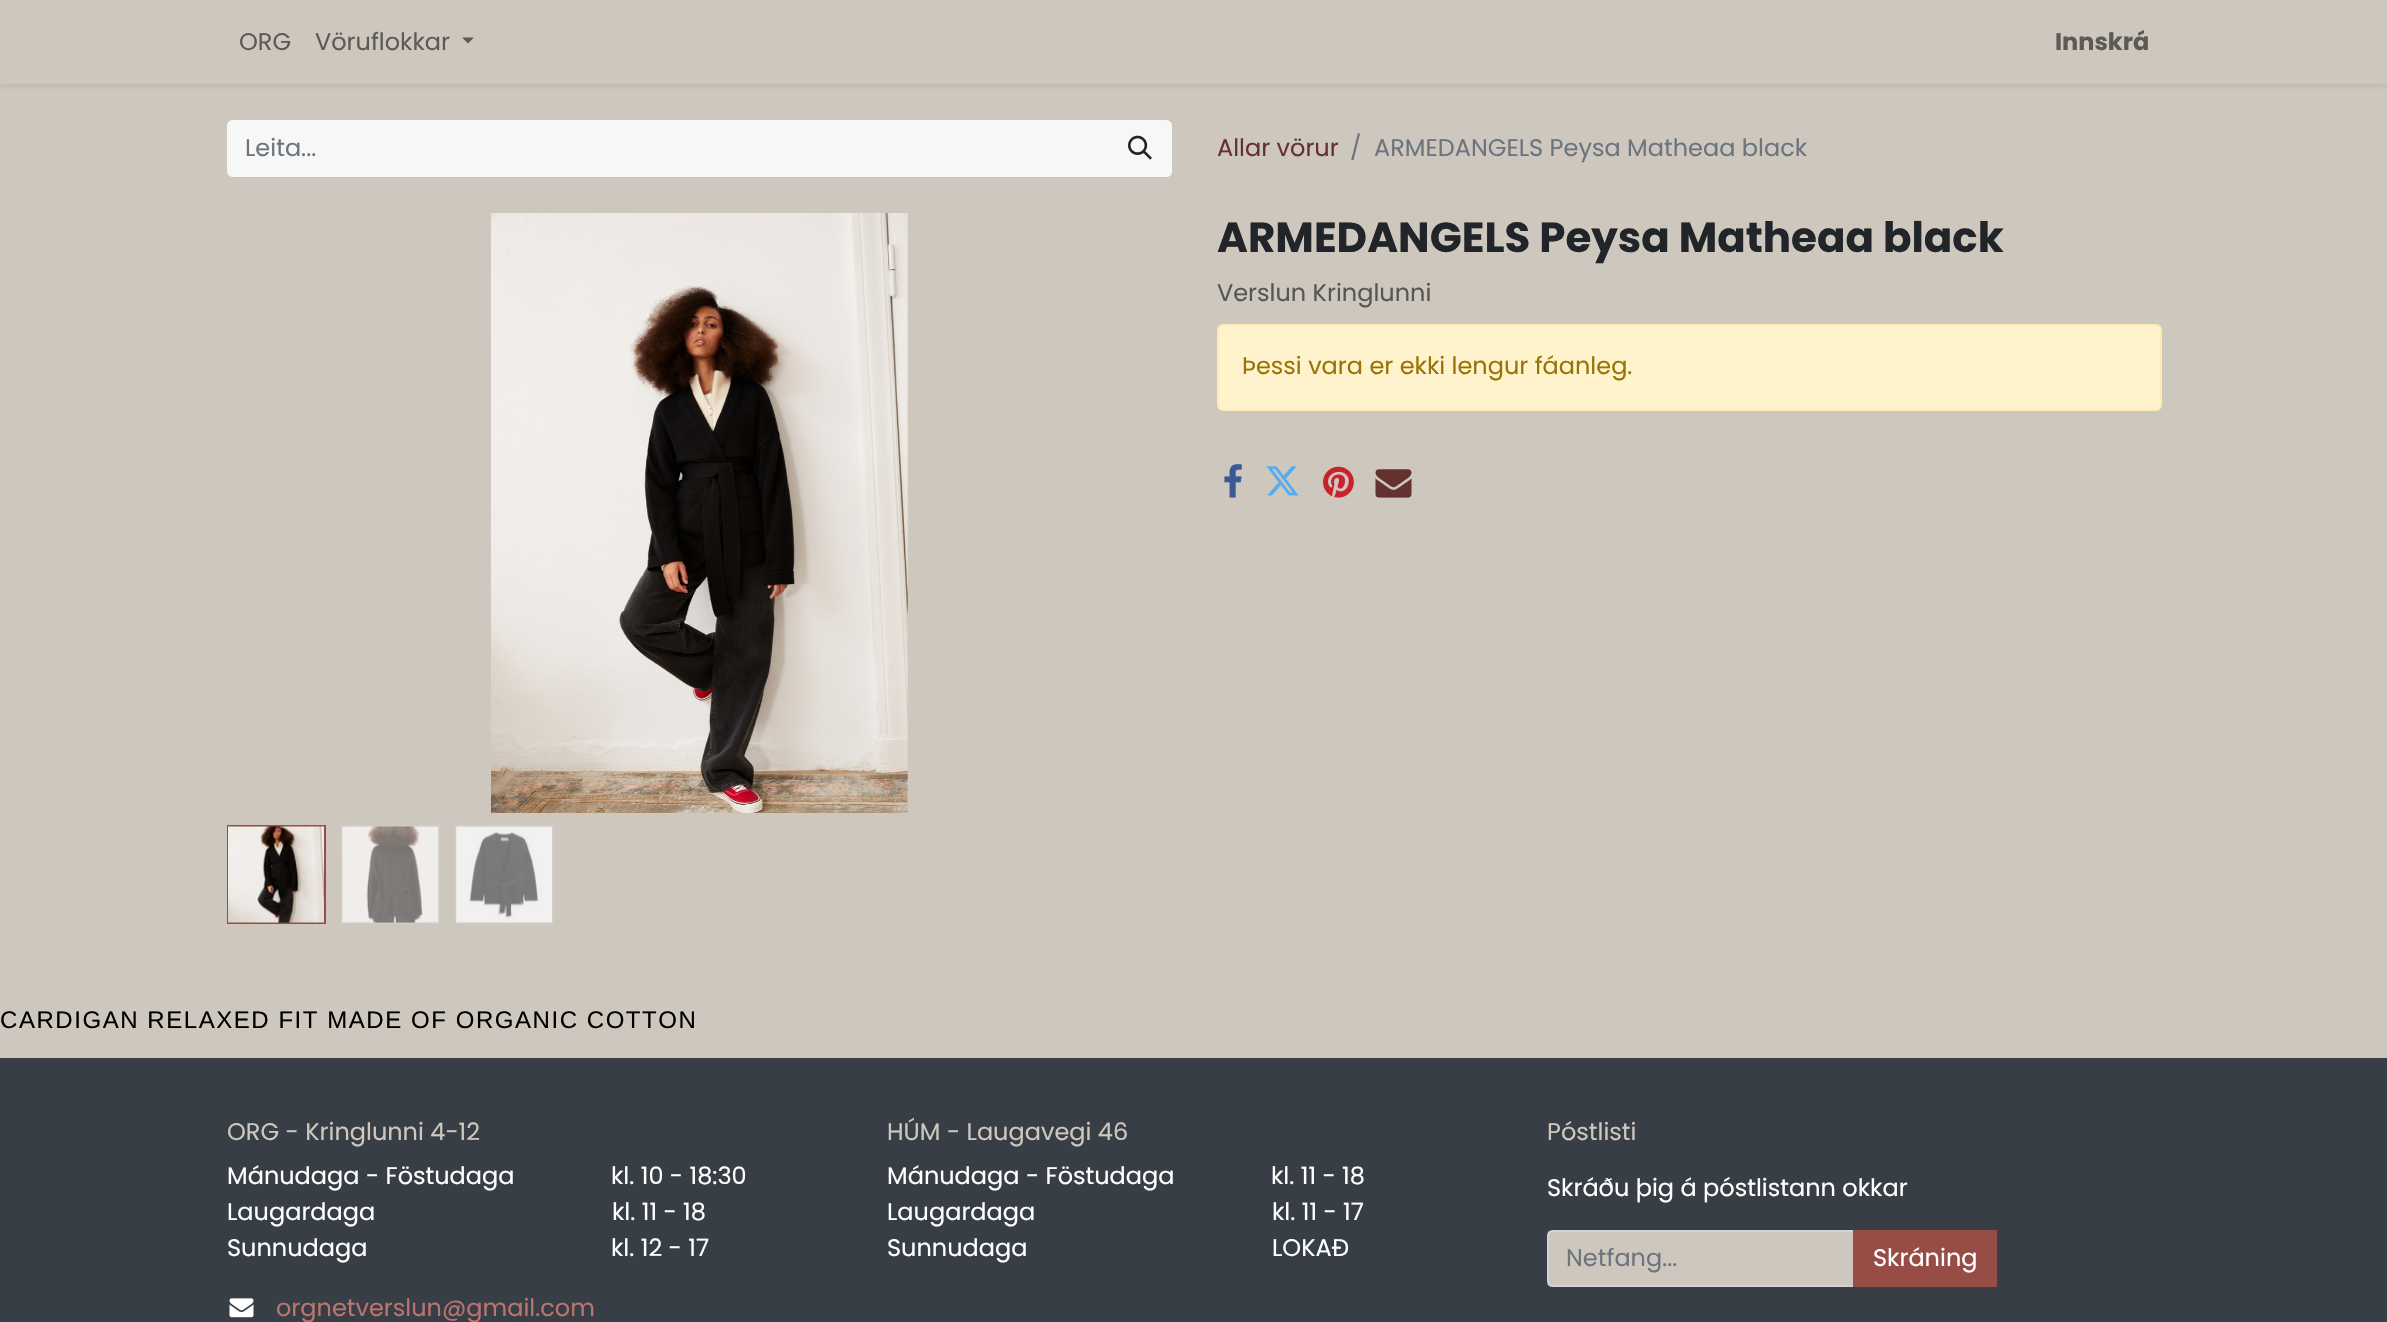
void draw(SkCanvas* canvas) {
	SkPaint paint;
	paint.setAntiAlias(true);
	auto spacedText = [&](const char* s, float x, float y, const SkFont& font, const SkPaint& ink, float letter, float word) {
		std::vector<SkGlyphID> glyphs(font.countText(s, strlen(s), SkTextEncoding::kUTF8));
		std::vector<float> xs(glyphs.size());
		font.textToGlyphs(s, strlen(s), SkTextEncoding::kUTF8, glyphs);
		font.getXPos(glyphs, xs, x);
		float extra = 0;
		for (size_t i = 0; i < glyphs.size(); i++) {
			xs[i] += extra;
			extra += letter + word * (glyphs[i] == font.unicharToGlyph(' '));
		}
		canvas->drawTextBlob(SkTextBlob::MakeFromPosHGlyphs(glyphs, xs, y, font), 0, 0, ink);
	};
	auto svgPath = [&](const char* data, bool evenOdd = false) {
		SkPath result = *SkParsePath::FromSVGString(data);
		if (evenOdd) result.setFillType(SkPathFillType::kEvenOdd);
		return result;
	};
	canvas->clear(0xffcec7bd);
	canvas->save();
	canvas->clipRect(SkRect::MakeXYWH(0, 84, 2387, 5));
	paint.setColor(0x12000000);
	paint.setMaskFilter(SkMaskFilter::MakeBlur(kNormal_SkBlurStyle, 3));
	canvas->drawRect(SkRect::MakeXYWH(0, 3, 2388, 84), paint);
	paint.setMaskFilter(nullptr);
	canvas->restore();
	SkFont f1(fontMgr->matchFamilyStyle("Poppins", SkFontStyle::Normal()), 24);
	f1.setSubpixel(true);
	paint.setColor(0xff5d5a55);
	canvas->drawString("ORG", 239, 50, f1, paint);
	canvas->drawString("Vöruflokkar", 315, 50, f1, paint);
	canvas->drawPath(svgPath("M462 37.5H474L468 43.5Z"), paint);
	SkFont f2(fontMgr->matchFamilyStyle("Poppins", SkFontStyle::Bold()), 24);
	f2.setSubpixel(true);
	canvas->drawString("Innskrá", 2055, 50, f2, paint);
	paint.setColor(0xfff7f7f7);
	canvas->drawPath(svgPath("M233 120H1110V177H233C229.5 177 227 174.5 227 171V126C227 122.5 229.5 120 233 120Z"), paint);
	paint.setColor(0xff6c757d);
	canvas->drawString("Leita...", 245, 156, f1, paint);
	paint.setColor(0xfff7f7f7);
	canvas->drawPath(svgPath("M1110 121H1166C1169 121 1171 123 1171 126V171C1171 174 1169 176 1166 176H1110Z"), paint);
	paint.setStroke(true);
	paint.setStrokeWidth(2);
	canvas->drawPath(svgPath("M1110 121H1166C1169 121 1171 123 1171 126V171C1171 174 1169 176 1166 176H1110Z"), paint);
	canvas->drawImageRect(SkImages::DeferredFromEncodedData(SkData::MakeFromFileName("img1.png")), SkRect::MakeXYWH(1128, 135, 24, 25), SkSamplingOptions());
	paint.setStroke(false);
	paint.setColor(0xff64322e);
	canvas->drawString("Allar vörur", 1217, 156, f1, paint);
	paint.setColor(0xff6c757d);
	canvas->drawString("/", 1350, 156, f1, paint);
	canvas->drawString("ARMEDANGELS Peysa Matheaa black", 1374, 156, f1, paint);
	canvas->drawImageRect(SkImages::DeferredFromEncodedData(SkData::MakeFromFileName("img2.png")), SkRect::MakeXYWH(491, 213, 417, 600), SkSamplingOptions());
	paint.setStroke(true);
	paint.setColor(0xff984c46);
	canvas->drawRect(SkRect::MakeXYWH(228, 826, 97, 97), paint);
	canvas->drawImageRect(SkImages::DeferredFromEncodedData(SkData::MakeFromFileName("img3.png")), SkRect::MakeXYWH(228, 826, 96, 97), SkSamplingOptions());
	paint.setStroke(false);
	paint.setColor(0xffe7e3de);
	canvas->drawRect(SkRect::MakeXYWH(342, 826, 97, 97), paint);
	paint.setStroke(true);
	paint.setColor(0xffcececc);
	canvas->drawRect(SkRect::MakeXYWH(342, 826, 97, 97), paint);
	canvas->drawImageRect(SkImages::DeferredFromEncodedData(SkData::MakeFromFileName("img4.png")), SkRect::MakeXYWH(342, 826, 96, 97), SkSamplingOptions());
	paint.setStroke(false);
	paint.setColor(0xffe7e3de);
	canvas->drawRect(SkRect::MakeXYWH(456, 826, 97, 97), paint);
	paint.setStroke(true);
	paint.setColor(0xffcececc);
	canvas->drawRect(SkRect::MakeXYWH(456, 826, 97, 97), paint);
	canvas->drawImageRect(SkImages::DeferredFromEncodedData(SkData::MakeFromFileName("img5.png")), SkRect::MakeXYWH(456, 826, 96, 97), SkSamplingOptions());
	SkFont f3(fontMgr->matchFamilyStyle("Poppins", SkFontStyle::Bold()), 42);
	f3.setSubpixel(true);
	paint.setStroke(false);
	paint.setColor(0xff212529);
	canvas->drawString("ARMEDANGELS Peysa Matheaa black", 1217, 252, f3, paint);
	paint.setColor(0xff555655);
	canvas->drawString("Verslun Kringlunni", 1217, 301, f1, paint);
	paint.setColor(0xfffff3cd);
	canvas->drawRoundRect(SkRect::MakeXYWH(1218, 325, 943, 85), 5, 5, paint);
	paint.setStroke(true);
	paint.setColor(0xffffecb5);
	canvas->drawRoundRect(SkRect::MakeXYWH(1218, 325, 943, 85), 5, 5, paint);
	paint.setStroke(false);
	paint.setColor(0xff997404);
	canvas->drawString("Þessi vara er ekki lengur fáanleg.", 1242, 374, f1, paint);
	canvas->drawImageRect(SkImages::DeferredFromEncodedData(SkData::MakeFromFileName("img6.png")), SkRect::MakeXYWH(1224, 464, 18, 34), SkSamplingOptions());
	canvas->drawImageRect(SkImages::DeferredFromEncodedData(SkData::MakeFromFileName("img7.png")), SkRect::MakeXYWH(1266, 466, 33, 30), SkSamplingOptions());
	canvas->drawImageRect(SkImages::DeferredFromEncodedData(SkData::MakeFromFileName("img8.png")), SkRect::MakeXYWH(1323, 466, 31, 32), SkSamplingOptions());
	canvas->drawImageRect(SkImages::DeferredFromEncodedData(SkData::MakeFromFileName("img9.png")), SkRect::MakeXYWH(1375, 469, 37, 29), SkSamplingOptions());
	SkFont f4(fontMgr->matchFamilyStyle("Liberation Sans", SkFontStyle::Normal()), 24);
	f4.setSubpixel(true);
	paint.setColor(0xff000000);
	spacedText("CARDIGAN RELAXED FIT MADE OF ORGANIC COTTON", 0, 1028, f4, paint, 1.55, 0);
	paint.setColor(0xff383e45);
	canvas->drawRect(SkRect::MakeXYWH(0, 1058, 2387, 264), paint);
	paint.setColor(0xffcec7bd);
	canvas->drawString("ORG - Kringlunni 4-12", 227, 1140, f1, paint);
	paint.setColor(0xffffffff);
	canvas->drawString("Mánudaga - Föstudaga", 227, 1184, f1, paint);
	canvas->drawString("kl. 10 - 18:30", 611, 1184, f1, paint);
	canvas->drawString("Laugardaga", 227, 1220, f1, paint);
	canvas->drawString("kl. 11 - 18", 612, 1220, f1, paint);
	canvas->drawString("Sunnudaga", 227, 1256, f1, paint);
	canvas->drawString("kl. 12 - 17", 611, 1256, f1, paint);
	canvas->drawImageRect(SkImages::DeferredFromEncodedData(SkData::MakeFromFileName("img10.png")), SkRect::MakeXYWH(229, 1298, 25, 20), SkSamplingOptions());
	paint.setColor(0xffbc746e);
	canvas->drawString("orgnetverslun@gmail.com", 276, 1316, f1, paint);
	paint.setColor(0xffcec7bd);
	canvas->drawString("HÚM - Laugavegi 46", 887, 1140, f1, paint);
	paint.setColor(0xffffffff);
	canvas->drawString("Mánudaga - Föstudaga", 887, 1184, f1, paint);
	canvas->drawString("kl. 11 - 18", 1271, 1184, f1, paint);
	canvas->drawString("Laugardaga", 887, 1220, f1, paint);
	canvas->drawString("kl. 11 - 17", 1272, 1220, f1, paint);
	canvas->drawString("Sunnudaga", 887, 1256, f1, paint);
	canvas->drawString("LOKAÐ", 1272, 1256, f1, paint);
	paint.setColor(0xffcec7bd);
	canvas->drawString("Póstlisti", 1547, 1140, f1, paint);
	paint.setColor(0xffffffff);
	canvas->drawString("Skráðu þig á póstlistann okkar", 1547, 1196, f1, paint);
	paint.setColor(0xffcec7bd);
	canvas->drawPath(svgPath("M1553 1231H1880V1286H1553C1550 1286 1548 1284 1548 1281V1236C1548 1233 1550 1231 1553 1231Z"), paint);
	paint.setStroke(true);
	paint.setColor(0xffced4da);
	canvas->drawPath(svgPath("M1553 1231H1880V1286H1553C1550 1286 1548 1284 1548 1281V1236C1548 1233 1550 1231 1553 1231Z"), paint);
	paint.setStroke(false);
	paint.setColor(0xff6c757d);
	canvas->drawString("Netfang...", 1566, 1266, f1, paint);
	paint.setColor(0xff984c46);
	canvas->drawRect(SkRect::MakeXYWH(1853, 1230, 144, 57), paint);
	paint.setColor(0xffffffff);
	canvas->drawString("Skráning", 1873, 1266, f1, paint);
}
